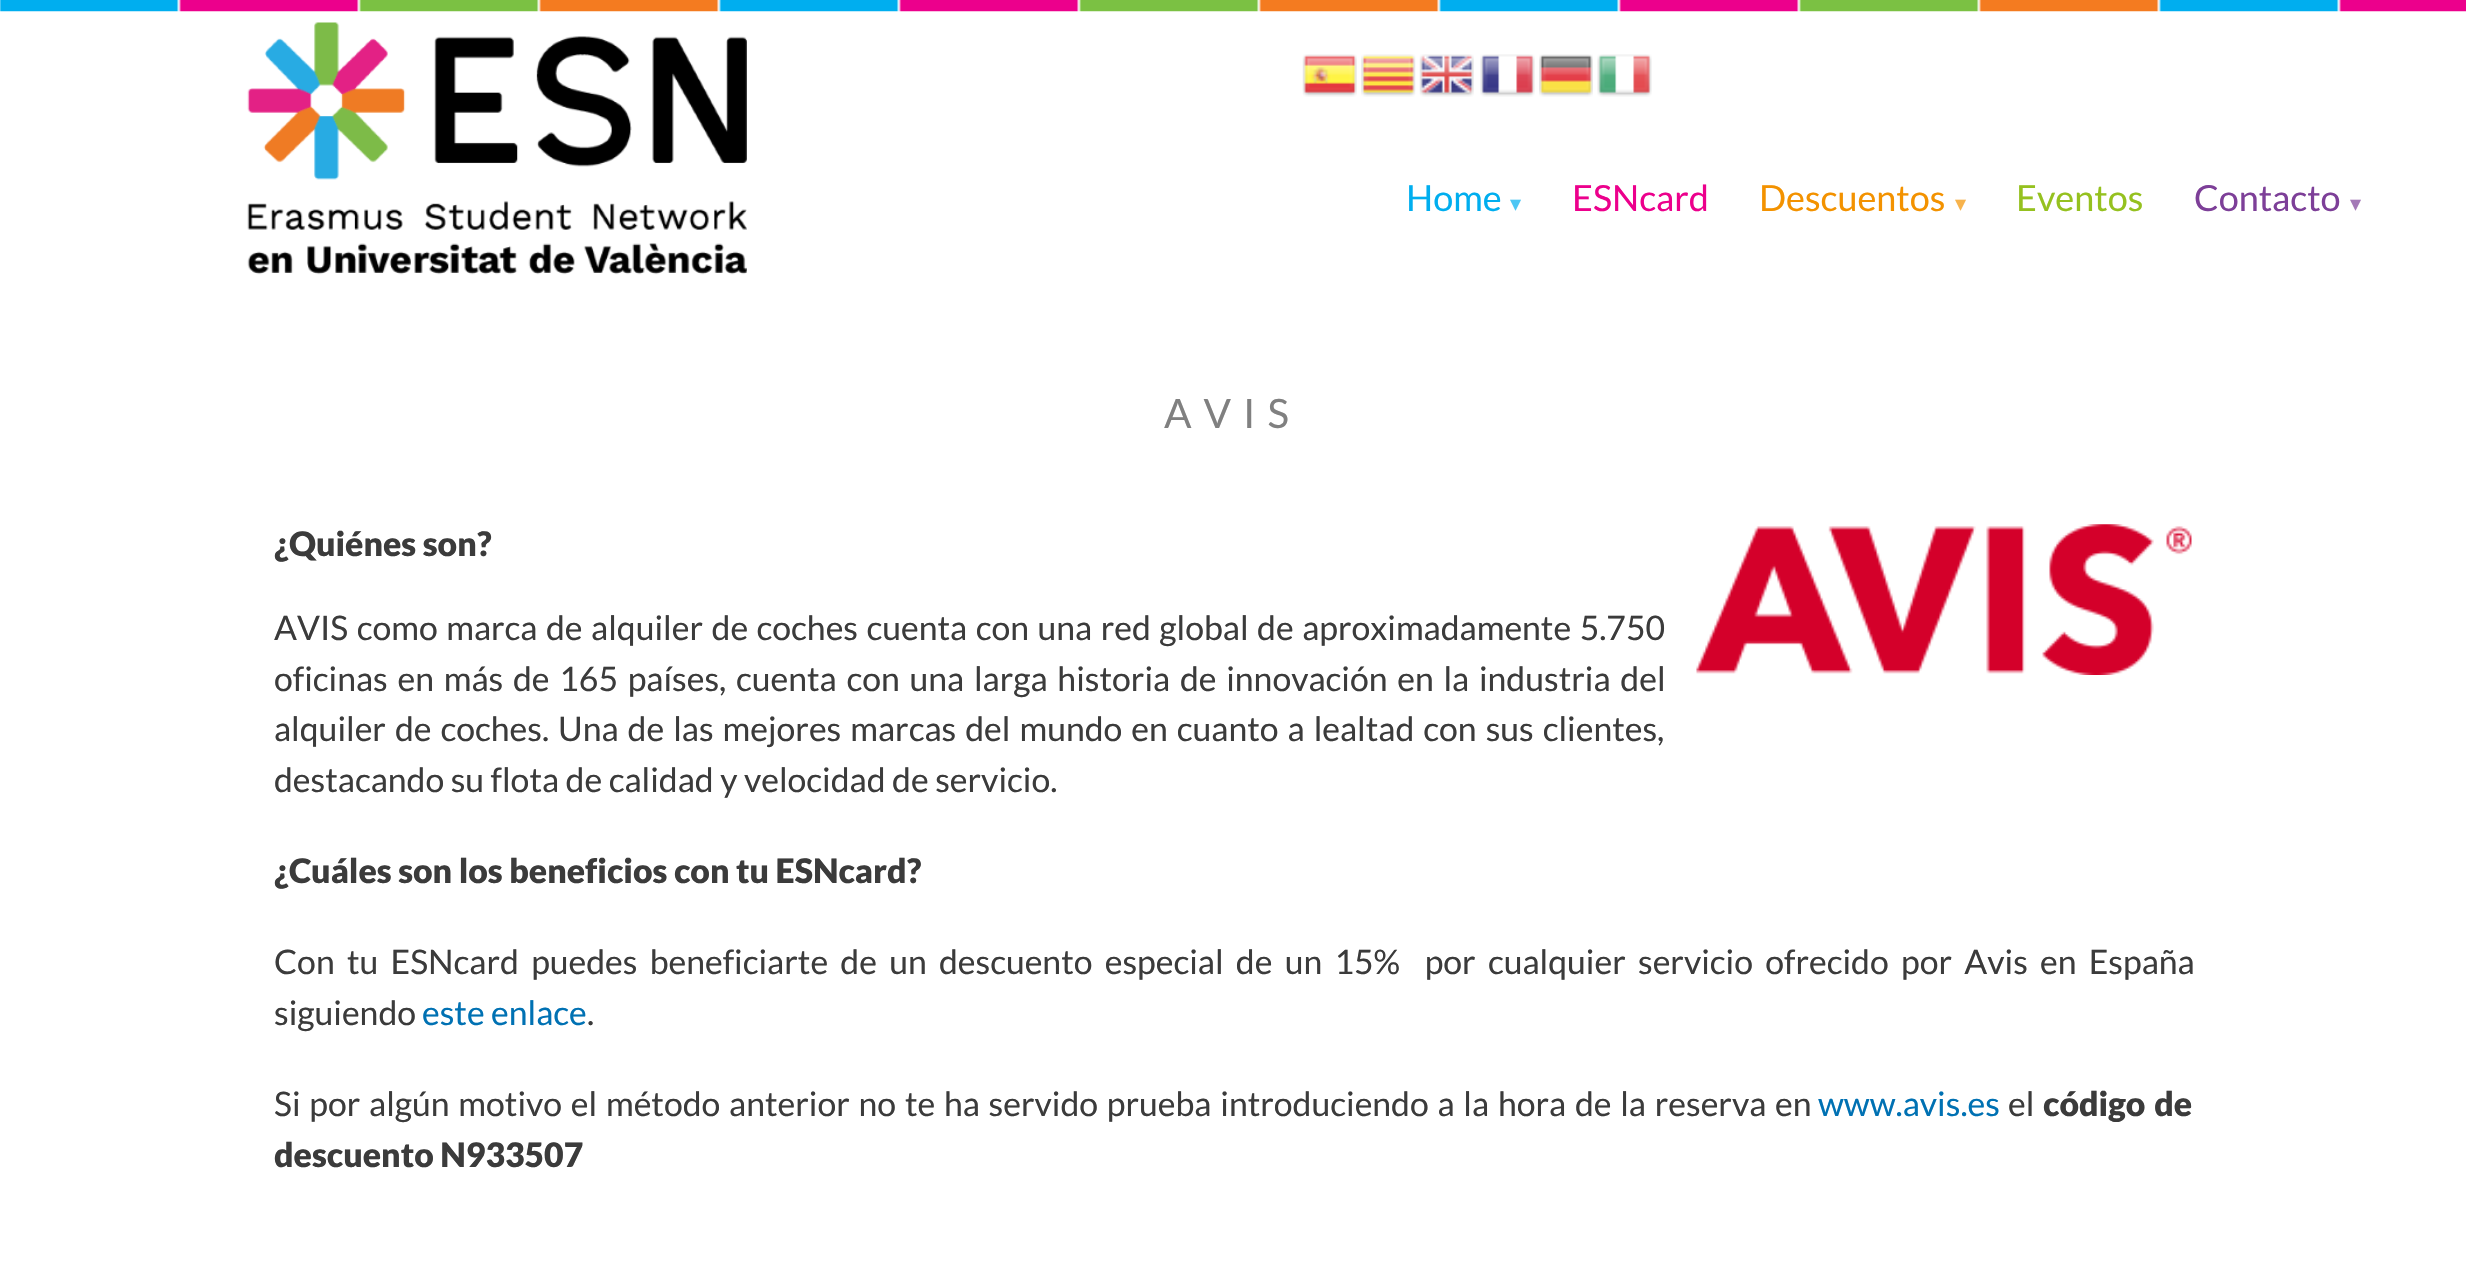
void draw(SkCanvas* canvas) {
	SkPaint paint;
	paint.setAntiAlias(true);
	auto spacedText = [&](const char* s, float x, float y, const SkFont& font, const SkPaint& ink, float letter, float word) {
		std::vector<SkGlyphID> glyphs(font.countText(s, strlen(s), SkTextEncoding::kUTF8));
		std::vector<float> xs(glyphs.size());
		font.textToGlyphs(s, strlen(s), SkTextEncoding::kUTF8, glyphs);
		font.getXPos(glyphs, xs, x);
		float extra = 0;
		for (size_t i = 0; i < glyphs.size(); i++) {
			xs[i] += extra;
			extra += letter + word * (glyphs[i] == font.unicharToGlyph(' '));
		}
		canvas->drawTextBlob(SkTextBlob::MakeFromPosHGlyphs(glyphs, xs, y, font), 0, 0, ink);
	};
	canvas->clear(0xffffffff);
	canvas->drawImageRect(SkImages::DeferredFromEncodedData(SkData::MakeFromFileName("img1.png")), SkRect::MakeXYWH(0, 0, 2466, 12), SkSamplingOptions());
	canvas->drawImageRect(SkImages::DeferredFromEncodedData(SkData::MakeFromFileName("img2.png")), SkRect::MakeXYWH(247, 22, 500, 253), SkSamplingOptions());
	canvas->drawImageRect(SkImages::DeferredFromEncodedData(SkData::MakeFromFileName("img3.png")), SkRect::MakeXYWH(1302, 54, 55, 43), SkSamplingOptions());
	canvas->drawImageRect(SkImages::DeferredFromEncodedData(SkData::MakeFromFileName("img4.png")), SkRect::MakeXYWH(1361, 54, 55, 43), SkSamplingOptions());
	canvas->drawImageRect(SkImages::DeferredFromEncodedData(SkData::MakeFromFileName("img5.png")), SkRect::MakeXYWH(1419, 54, 55, 43), SkSamplingOptions());
	canvas->drawImageRect(SkImages::DeferredFromEncodedData(SkData::MakeFromFileName("img6.png")), SkRect::MakeXYWH(1480, 54, 55, 43), SkSamplingOptions());
	canvas->drawImageRect(SkImages::DeferredFromEncodedData(SkData::MakeFromFileName("img7.png")), SkRect::MakeXYWH(1539, 54, 54, 43), SkSamplingOptions());
	canvas->drawImageRect(SkImages::DeferredFromEncodedData(SkData::MakeFromFileName("img8.png")), SkRect::MakeXYWH(1597, 54, 55, 43), SkSamplingOptions());
	SkFont f1(fontMgr->matchFamilyStyle("Lato", SkFontStyle::Normal()), 36);
	f1.setSubpixel(true);
	paint.setColor(0xff00aeef);
	canvas->drawString("Home", 1406, 211, f1, paint);
	SkFont f2(fontMgr->matchFamilyStyle("DejaVu Sans", SkFontStyle::Normal()), 22);
	f2.setSubpixel(true);
	paint.setColor(0xff4dc6f4);
	canvas->drawString("▾", 1510, 211, f2, paint);
	paint.setColor(0xffec008c);
	canvas->drawString("ESNcard", 1572, 211, f1, paint);
	paint.setColor(0xfff39200);
	canvas->drawString("Descuentos", 1759, 211, f1, paint);
	paint.setColor(0xfff7b34d);
	canvas->drawString("▾", 1955, 211, f2, paint);
	paint.setColor(0xff95c11f);
	canvas->drawString("Eventos", 2016, 211, f1, paint);
	paint.setColor(0xff7d3f98);
	canvas->drawString("Contacto", 2194, 211, f1, paint);
	paint.setColor(0xffa479b7);
	canvas->drawString("▾", 2350, 211, f2, paint);
	SkFont f3(fontMgr->matchFamilyStyle("Lato", SkFontStyle::Normal()), 40.5);
	f3.setSubpixel(true);
	paint.setColor(0xff808080);
	spacedText("AVIS", 1164, 428, f3, paint, 12, 0);
	canvas->drawImageRect(SkImages::DeferredFromEncodedData(SkData::MakeFromFileName("img9.png")), SkRect::MakeXYWH(1696, 524, 496, 151), SkSamplingOptions());
	SkFont f4(fontMgr->matchFamilyStyle("Lato", SkFontStyle(900, SkFontStyle::kNormal_Width, SkFontStyle::kUpright_Slant)), 33.75);
	f4.setSubpixel(true);
	paint.setColor(0xff3b3b3b);
	canvas->drawString("¿Quiénes son?", 274, 556, f4, paint);
	SkFont f5(fontMgr->matchFamilyStyle("Lato", SkFontStyle::Normal()), 33.75);
	f5.setSubpixel(true);
	spacedText("AVIS como marca de alquiler de coches cuenta con una red global de aproximadamente 5.750", 274, 640, f5, paint, 0, 2);
	spacedText("oficinas en más de 165 países, cuenta con una larga historia de innovación en la industria del", 274, 691, f5, paint, 0, 3.25);
	spacedText("alquiler de coches. Una de las mejores marcas del mundo en cuanto a lealtad con sus clientes,", 274, 741, f5, paint, 0, 2.5);
	canvas->drawString("destacando su flota de calidad y velocidad de servicio.", 274, 792, f5, paint);
	canvas->drawString("¿Cuáles son los beneficios con tu ESNcard?", 274, 883, f4, paint);
	spacedText("Con tu ESNcard puedes beneficiarte de un descuento especial de un 15%  por cualquier servicio ofrecido por Avis en España", 274, 974, f5, paint, 0, 5.75);
	canvas->drawString("siguiendo", 274, 1025, f5, paint);
	paint.setColor(0xff0071b3);
	canvas->drawString("este enlace", 422, 1025, f5, paint);
	paint.setColor(0xff3b3b3b);
	canvas->drawString(".", 587, 1025, f5, paint);
	spacedText("Si por algún motivo el método anterior no te ha servido prueba introduciendo a la hora de la reserva en", 274, 1116, f5, paint, 0, 2.25);
	paint.setColor(0xff0071b3);
	canvas->drawString("www.avis.es", 1818, 1116, f5, paint);
	paint.setColor(0xff3b3b3b);
	canvas->drawString("el", 2008, 1116, f5, paint);
	spacedText("código de", 2043, 1116, f4, paint, 0, 2.25);
	canvas->drawString("descuento N933507", 274, 1167, f4, paint);
}
